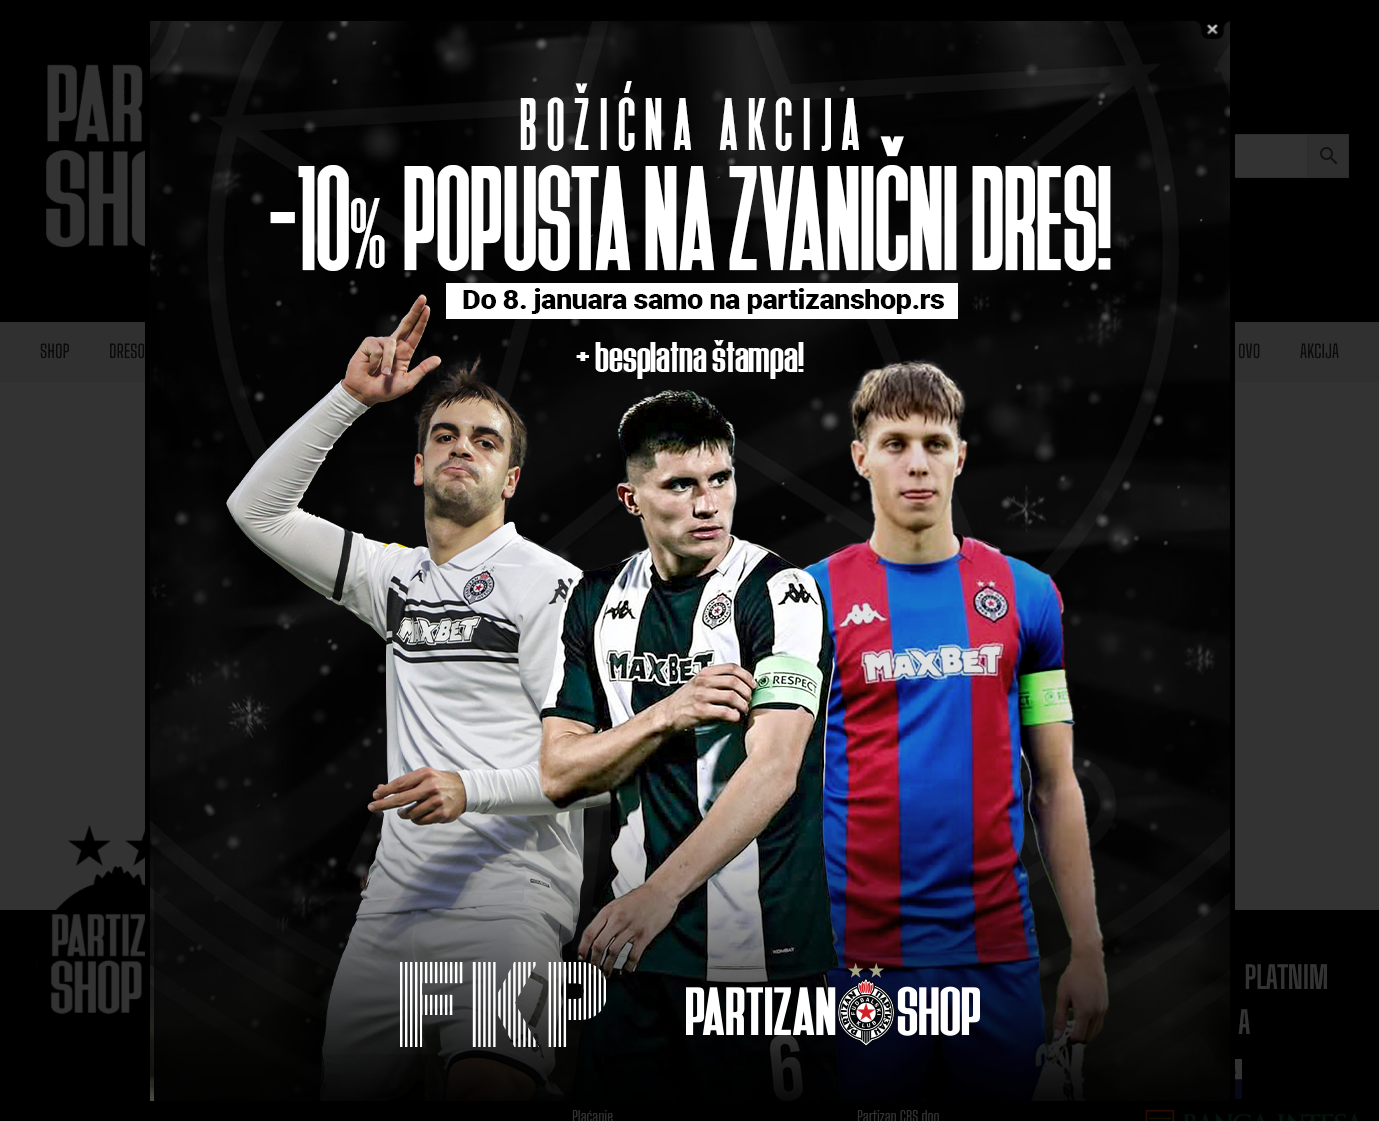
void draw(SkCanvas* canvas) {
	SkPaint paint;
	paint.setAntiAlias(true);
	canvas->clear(0xff333333);
	paint.setColor(0xff000000);
	canvas->drawRect(SkRect::MakeXYWH(0, 0, 1379, 322), paint);
	paint.setColor(0xff333333);
	canvas->drawRect(SkRect::MakeXYWH(1235, 135, 72, 42), paint);
	paint.setColor(0xff2f2f2f);
	canvas->drawRect(SkRect::MakeXYWH(1307.5, 134.5, 41, 43), paint);
	paint.setStroke(true);
	paint.setStrokeWidth(1);
	paint.setColor(0xff2b2b2b);
	canvas->drawRect(SkRect::MakeXYWH(1307.5, 134.5, 41, 43), paint);
	paint.setColor(0xff2c2c2c);
	canvas->drawRect(SkRect::MakeXYWH(1166.5, 134.5, 141, 43), paint);
	paint.setStroke(false);
	paint.setColor(0xff303030);
	canvas->drawRect(SkRect::MakeXYWH(0, 322, 1379, 60), paint);
	paint.setColor(0xff000000);
	canvas->drawRect(SkRect::MakeXYWH(0, 910, 1379, 211), paint);
	paint.setColor(0xff303131);
	canvas->drawRect(SkRect::MakeXYWH(0, 909, 1379, 1), paint);
	canvas->drawImageRect(SkImages::DeferredFromEncodedData(SkData::MakeFromFileName("img1.png")), SkRect::MakeXYWH(150, 21, 1080, 1080), SkSamplingOptions());
	paint.setStroke(true);
	paint.setStrokeWidth(5);
	paint.setColor(0xff000000);
	canvas->drawRect(SkRect::MakeXYWH(147.5, 18.5, 1085, 1085), paint);
	canvas->drawImageRect(SkImages::DeferredFromEncodedData(SkData::MakeFromFileName("img2.png")), SkRect::MakeXYWH(1195, 21, 35, 18), SkSamplingOptions());
	canvas->drawImageRect(SkImages::DeferredFromEncodedData(SkData::MakeFromFileName("img3.png")), SkRect::MakeXYWH(45, 64, 100, 184), SkSamplingOptions());
	canvas->drawImageRect(SkImages::DeferredFromEncodedData(SkData::MakeFromFileName("img4.png")), SkRect::MakeXYWH(1320, 147, 18, 18), SkSamplingOptions());
	SkFont f1(fontMgr->matchFamilyStyle("Big Shoulders Text", SkFontStyle(100, SkFontStyle::kNormal_Width, SkFontStyle::kUpright_Slant)), 18);
	f1.setSubpixel(true);
	paint.setStroke(false);
	paint.setColor(0xff0a0a0a);
	canvas->drawString("SHOP", 40, 358, f1, paint);
	canvas->drawString("DRESO", 109, 358, f1, paint);
	canvas->drawString("OVO", 1238, 358, f1, paint);
	canvas->drawString("AKCIJA", 1300, 358, f1, paint);
	canvas->drawImageRect(SkImages::DeferredFromEncodedData(SkData::MakeFromFileName("img5.png")), SkRect::MakeXYWH(36, 825, 109, 190), SkSamplingOptions());
	SkFont f2(fontMgr->matchFamilyStyle("Big Shoulders Text", SkFontStyle::Bold()), 30);
	f2.setSubpixel(true);
	paint.setColor(0xff333333);
	canvas->drawString("PLATNIM", 1244, 989, f2, paint);
	canvas->drawString("A", 1238, 1034, f2, paint);
	canvas->drawImageRect(SkImages::DeferredFromEncodedData(SkData::MakeFromFileName("img6.png")), SkRect::MakeXYWH(1235, 1059, 7, 40), SkSamplingOptions());
	canvas->drawImageRect(SkImages::DeferredFromEncodedData(SkData::MakeFromFileName("img7.png")), SkRect::MakeXYWH(1145, 1109, 213, 12), SkSamplingOptions());
	SkFont f3(fontMgr->matchFamilyStyle("Big Shoulders Text", SkFontStyle(100, SkFontStyle::kNormal_Width, SkFontStyle::kUpright_Slant)), 15);
	f3.setSubpixel(true);
	canvas->drawString("Plaćanje", 572, 1122, f3, paint);
	canvas->drawString("Partizan CBS doo", 857, 1122, f3, paint);
}
